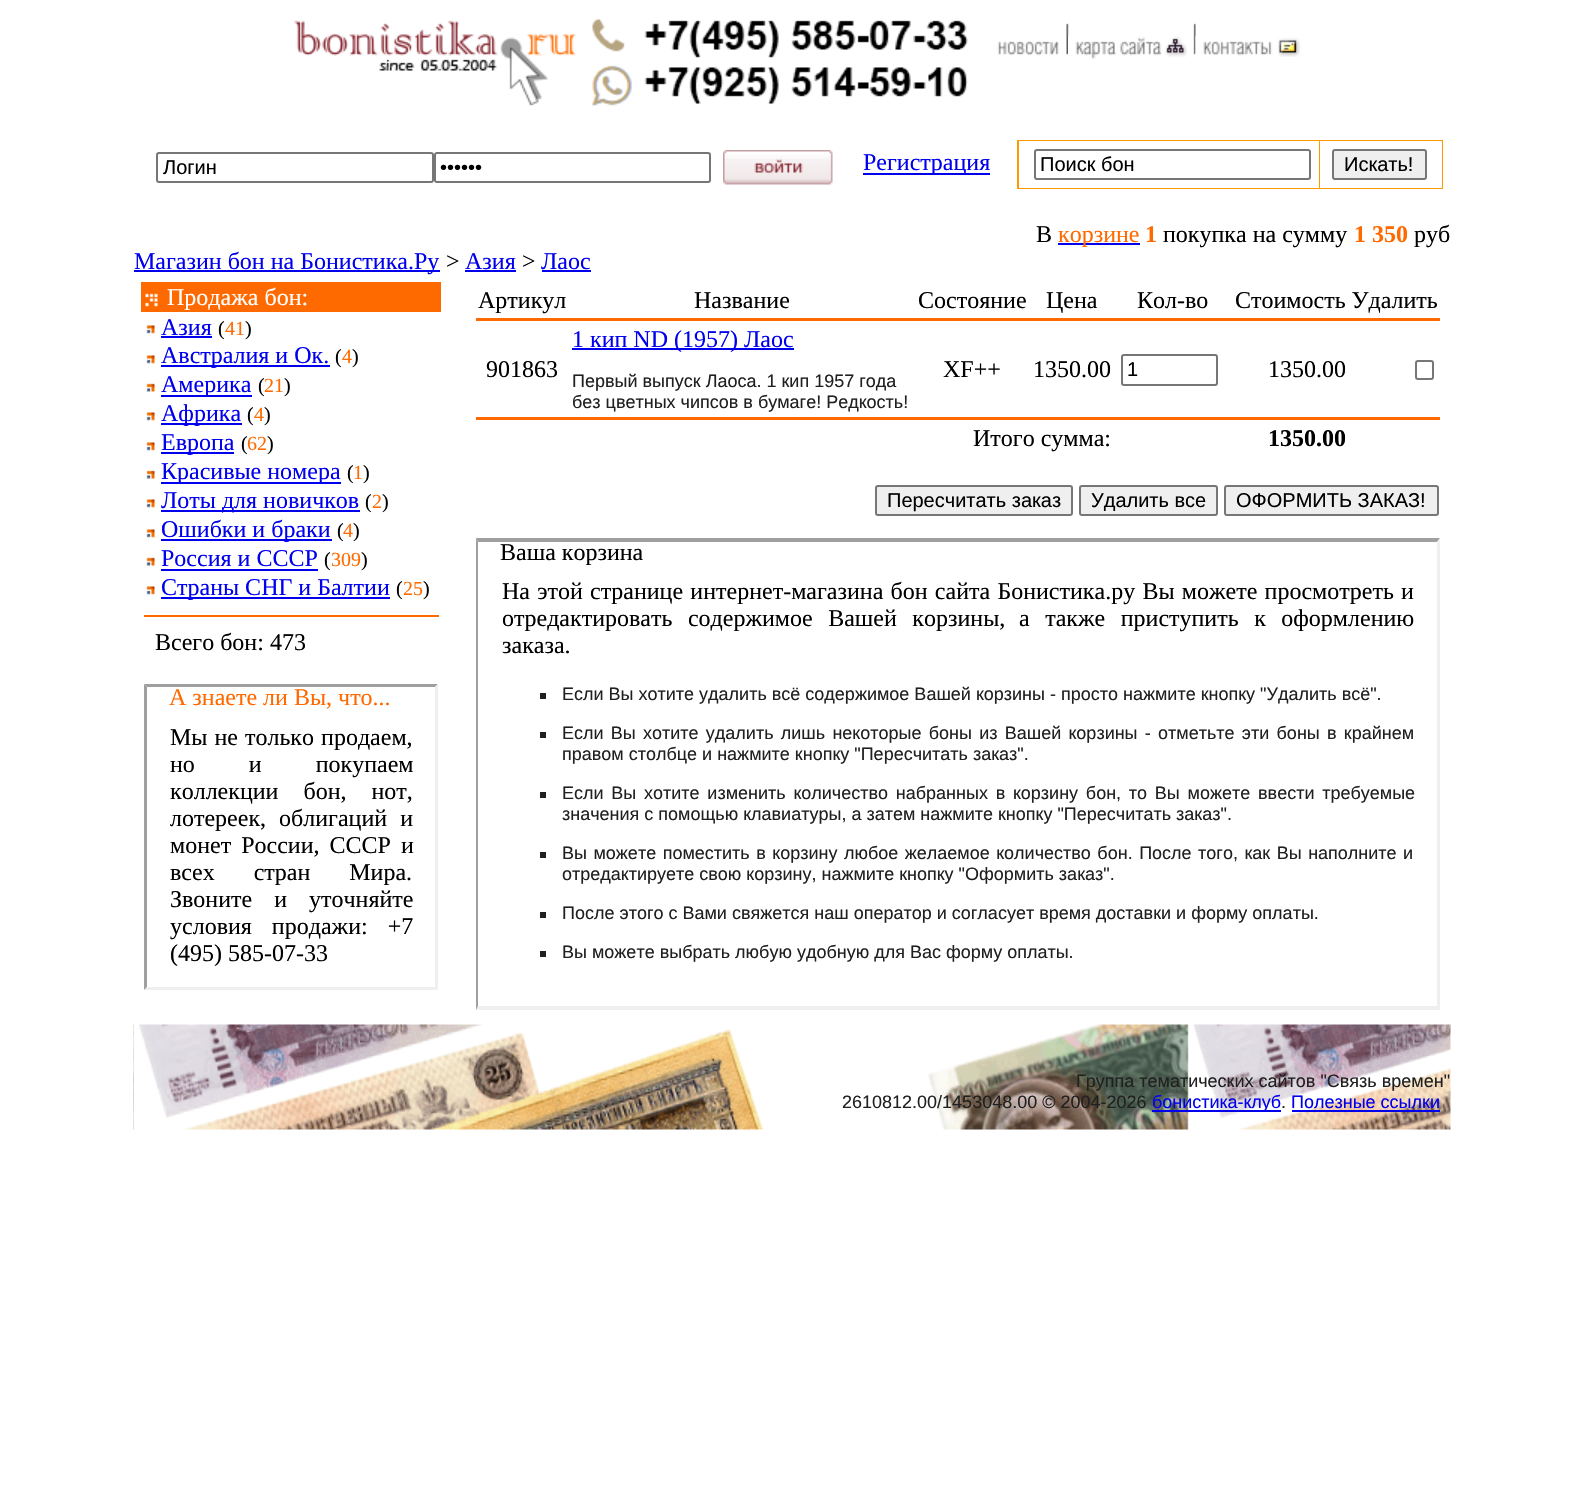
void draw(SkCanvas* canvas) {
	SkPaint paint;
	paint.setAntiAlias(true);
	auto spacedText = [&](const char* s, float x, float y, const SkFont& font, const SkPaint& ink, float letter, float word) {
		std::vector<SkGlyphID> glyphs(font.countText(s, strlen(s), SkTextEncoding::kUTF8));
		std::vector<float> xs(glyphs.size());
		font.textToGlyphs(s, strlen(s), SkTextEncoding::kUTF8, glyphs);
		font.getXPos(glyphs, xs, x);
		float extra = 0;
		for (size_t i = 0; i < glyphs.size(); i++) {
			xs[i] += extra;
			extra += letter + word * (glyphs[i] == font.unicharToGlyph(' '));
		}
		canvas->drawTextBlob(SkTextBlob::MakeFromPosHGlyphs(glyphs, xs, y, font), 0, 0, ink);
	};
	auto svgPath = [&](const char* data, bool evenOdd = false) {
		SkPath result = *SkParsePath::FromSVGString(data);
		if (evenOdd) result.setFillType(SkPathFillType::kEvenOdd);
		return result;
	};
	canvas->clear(0xffffffff);
	canvas->drawImageRect(SkImages::DeferredFromEncodedData(SkData::MakeFromFileName("img1.png")), SkRect::MakeXYWH(293, 20, 284, 86), SkSamplingOptions());
	canvas->drawImageRect(SkImages::DeferredFromEncodedData(SkData::MakeFromFileName("img2.png")), SkRect::MakeXYWH(591, 19, 377, 88), SkSamplingOptions());
	canvas->drawImageRect(SkImages::DeferredFromEncodedData(SkData::MakeFromFileName("img3.png")), SkRect::MakeXYWH(1066, 23, 130, 13), SkSamplingOptions());
	canvas->drawImageRect(SkImages::DeferredFromEncodedData(SkData::MakeFromFileName("img4.png")), SkRect::MakeXYWH(997, 36, 71, 20), SkSamplingOptions());
	canvas->drawImageRect(SkImages::DeferredFromEncodedData(SkData::MakeFromFileName("img5.png")), SkRect::MakeXYWH(1075, 36, 121, 23), SkSamplingOptions());
	canvas->drawImageRect(SkImages::DeferredFromEncodedData(SkData::MakeFromFileName("img6.png")), SkRect::MakeXYWH(1195, 36, 106, 21), SkSamplingOptions());
	paint.setStroke(true);
	paint.setStrokeWidth(2);
	paint.setColor(0xff767676);
	canvas->drawRoundRect(SkRect::MakeXYWH(157, 153, 276, 29), 2, 2, paint);
	SkFont f1(fontMgr->matchFamilyStyle("Liberation Sans", SkFontStyle::Normal()), 20);
	f1.setSubpixel(true);
	paint.setStroke(false);
	paint.setColor(0xff000000);
	canvas->drawString("Логин", 163, 174, f1, paint);
	paint.setStroke(true);
	paint.setColor(0xff767676);
	canvas->drawRoundRect(SkRect::MakeXYWH(435, 153, 275, 29), 2, 2, paint);
	paint.setStroke(false);
	paint.setColor(0xff000000);
	canvas->drawString("••••••", 440, 174, f1, paint);
	canvas->drawImageRect(SkImages::DeferredFromEncodedData(SkData::MakeFromFileName("img7.png")), SkRect::MakeXYWH(723, 150, 110, 35), SkSamplingOptions());
	paint.setColor(0xff0000ee);
	canvas->drawRect(SkRect::MakeXYWH(863, 173, 127, 2), paint);
	SkFont f2(fontMgr->matchFamilyStyle("Liberation Serif", SkFontStyle::Normal()), 24);
	f2.setSubpixel(true);
	canvas->drawString("Регистрация", 863, 170, f2, paint);
	paint.setColor(0xffff9900);
	canvas->drawRect(SkRect::MakeXYWH(1017, 140, 426, 49), paint);
	paint.setColor(0xffffffff);
	canvas->drawRect(SkRect::MakeXYWH(1019, 141, 300, 47), paint);
	paint.setStroke(true);
	paint.setColor(0xff767676);
	canvas->drawRoundRect(SkRect::MakeXYWH(1035, 150, 275, 29), 2, 2, paint);
	paint.setStroke(false);
	paint.setColor(0xff000000);
	canvas->drawString("Поиск бон", 1040, 171, f1, paint);
	paint.setColor(0xffffffff);
	canvas->drawRect(SkRect::MakeXYWH(1320, 141, 122, 47), paint);
	paint.setColor(0xffefefef);
	canvas->drawRoundRect(SkRect::MakeXYWH(1333, 150, 93, 29), 2, 2, paint);
	paint.setStroke(true);
	paint.setColor(0xff767676);
	canvas->drawRoundRect(SkRect::MakeXYWH(1333, 150, 93, 29), 2, 2, paint);
	paint.setStroke(false);
	paint.setColor(0xff000000);
	canvas->drawString("Искать!", 1344, 171, f1, paint);
	canvas->drawString("В", 1036, 242, f2, paint);
	paint.setColor(0xff0000ee);
	canvas->drawRect(SkRect::MakeXYWH(1058, 243, 82, 2), paint);
	paint.setColor(0xffff6a00);
	canvas->drawString("корзине", 1058, 242, f2, paint);
	SkFont f3(fontMgr->matchFamilyStyle("Liberation Serif", SkFontStyle::Bold()), 24);
	f3.setSubpixel(true);
	canvas->drawString("1", 1145, 242, f3, paint);
	paint.setColor(0xff000000);
	canvas->drawString("покупка на сумму", 1163, 242, f2, paint);
	paint.setColor(0xffff6a00);
	canvas->drawString("1 350", 1354, 242, f3, paint);
	paint.setColor(0xff000000);
	canvas->drawString("руб", 1414, 242, f2, paint);
	paint.setColor(0xff0000ee);
	canvas->drawRect(SkRect::MakeXYWH(134, 270, 306, 2), paint);
	canvas->drawString("Магазин бон на Бонистика.Ру", 134, 269, f2, paint);
	paint.setColor(0xff000000);
	canvas->drawString(">", 446, 269, f2, paint);
	paint.setColor(0xff0000ee);
	canvas->drawString("Азия", 465, 269, f2, paint);
	canvas->drawRect(SkRect::MakeXYWH(465, 270, 51, 2), paint);
	paint.setColor(0xff000000);
	canvas->drawString(">", 522, 269, f2, paint);
	paint.setColor(0xff0000ee);
	canvas->drawString("Лаос", 541, 269, f2, paint);
	canvas->drawRect(SkRect::MakeXYWH(542, 270, 49, 2), paint);
	paint.setColor(0xffff6a00);
	canvas->drawRect(SkRect::MakeXYWH(141, 282, 300, 30), paint);
	canvas->drawImageRect(SkImages::DeferredFromEncodedData(SkData::MakeFromFileName("img8.png")), SkRect::MakeXYWH(145, 293, 13, 14), SkSamplingOptions());
	paint.setColor(0xffffffff);
	canvas->drawString("Продажа бон:", 167, 305, f2, paint);
	canvas->drawImageRect(SkImages::DeferredFromEncodedData(SkData::MakeFromFileName("img9.png")), SkRect::MakeXYWH(146, 325, 9, 9), SkSamplingOptions());
	paint.setColor(0xff0000ee);
	canvas->drawString("Азия", 161, 335, f2, paint);
	canvas->drawRect(SkRect::MakeXYWH(161, 336, 51, 2), paint);
	SkFont f4(fontMgr->matchFamilyStyle("Liberation Serif", SkFontStyle::Normal()), 20);
	f4.setSubpixel(true);
	paint.setColor(0xff000000);
	canvas->drawString("(", 218, 335, f4, paint);
	paint.setColor(0xffff6a00);
	canvas->drawString("41", 225, 335, f4, paint);
	paint.setColor(0xff000000);
	canvas->drawString(")", 245, 335, f4, paint);
	canvas->drawImageRect(SkImages::DeferredFromEncodedData(SkData::MakeFromFileName("img9.png")), SkRect::MakeXYWH(146, 355, 9, 9), SkSamplingOptions());
	paint.setColor(0xff0000ee);
	canvas->drawRect(SkRect::MakeXYWH(161, 365, 169, 2), paint);
	canvas->drawString("Австралия и Ок.", 161, 363, f2, paint);
	paint.setColor(0xff000000);
	canvas->drawString("(", 335, 363, f4, paint);
	paint.setColor(0xffff6a00);
	canvas->drawString("4", 342, 363, f4, paint);
	paint.setColor(0xff000000);
	canvas->drawString(")", 352, 363, f4, paint);
	canvas->drawImageRect(SkImages::DeferredFromEncodedData(SkData::MakeFromFileName("img10.png")), SkRect::MakeXYWH(146, 383, 9, 9), SkSamplingOptions());
	paint.setColor(0xff0000ee);
	canvas->drawRect(SkRect::MakeXYWH(161, 395, 91, 2), paint);
	canvas->drawString("Америка", 161, 392, f2, paint);
	paint.setColor(0xff000000);
	canvas->drawString("(", 258, 392, f4, paint);
	paint.setColor(0xffff6a00);
	canvas->drawString("21", 264, 392, f4, paint);
	paint.setColor(0xff000000);
	canvas->drawString(")", 284, 392, f4, paint);
	canvas->drawImageRect(SkImages::DeferredFromEncodedData(SkData::MakeFromFileName("img9.png")), SkRect::MakeXYWH(146, 412, 9, 9), SkSamplingOptions());
	paint.setColor(0xff0000ee);
	canvas->drawRect(SkRect::MakeXYWH(161, 423, 81, 2), paint);
	canvas->drawString("Африка", 161, 421, f2, paint);
	paint.setColor(0xff000000);
	canvas->drawString("(", 247, 421, f4, paint);
	paint.setColor(0xffff6a00);
	canvas->drawString("4", 254, 421, f4, paint);
	paint.setColor(0xff000000);
	canvas->drawString(")", 264, 421, f4, paint);
	canvas->drawImageRect(SkImages::DeferredFromEncodedData(SkData::MakeFromFileName("img9.png")), SkRect::MakeXYWH(146, 442, 9, 9), SkSamplingOptions());
	paint.setColor(0xff0000ee);
	canvas->drawRect(SkRect::MakeXYWH(161, 452, 73, 2), paint);
	canvas->drawString("Европа", 161, 450, f2, paint);
	paint.setColor(0xff000000);
	canvas->drawString("(", 241, 450, f4, paint);
	paint.setColor(0xffff6a00);
	canvas->drawString("62", 247, 450, f4, paint);
	paint.setColor(0xff000000);
	canvas->drawString(")", 267, 450, f4, paint);
	canvas->drawImageRect(SkImages::DeferredFromEncodedData(SkData::MakeFromFileName("img10.png")), SkRect::MakeXYWH(146, 470, 9, 9), SkSamplingOptions());
	paint.setColor(0xff0000ee);
	canvas->drawRect(SkRect::MakeXYWH(161, 482, 180, 2), paint);
	canvas->drawString("Красивые номера", 161, 479, f2, paint);
	paint.setColor(0xff000000);
	canvas->drawString("(", 347, 479, f4, paint);
	paint.setColor(0xffff6a00);
	canvas->drawString("1", 353, 479, f4, paint);
	paint.setColor(0xff000000);
	canvas->drawString(")", 363, 479, f4, paint);
	canvas->drawImageRect(SkImages::DeferredFromEncodedData(SkData::MakeFromFileName("img9.png")), SkRect::MakeXYWH(146, 499, 9, 9), SkSamplingOptions());
	paint.setColor(0xff0000ee);
	canvas->drawRect(SkRect::MakeXYWH(161, 510, 199, 2), paint);
	canvas->drawString("Лоты для новичков", 161, 508, f2, paint);
	paint.setColor(0xff000000);
	canvas->drawString("(", 365, 508, f4, paint);
	paint.setColor(0xffff6a00);
	canvas->drawString("2", 372, 508, f4, paint);
	paint.setColor(0xff000000);
	canvas->drawString(")", 382, 508, f4, paint);
	canvas->drawImageRect(SkImages::DeferredFromEncodedData(SkData::MakeFromFileName("img9.png")), SkRect::MakeXYWH(146, 529, 9, 9), SkSamplingOptions());
	paint.setColor(0xff0000ee);
	canvas->drawRect(SkRect::MakeXYWH(161, 539, 171, 2), paint);
	canvas->drawString("Ошибки и браки", 161, 537, f2, paint);
	paint.setColor(0xff000000);
	canvas->drawString("(", 337, 537, f4, paint);
	paint.setColor(0xffff6a00);
	canvas->drawString("4", 343, 537, f4, paint);
	paint.setColor(0xff000000);
	canvas->drawString(")", 353, 537, f4, paint);
	canvas->drawImageRect(SkImages::DeferredFromEncodedData(SkData::MakeFromFileName("img10.png")), SkRect::MakeXYWH(146, 557, 9, 9), SkSamplingOptions());
	paint.setColor(0xff0000ee);
	canvas->drawString("Россия и СССР", 161, 566, f2, paint);
	canvas->drawRect(SkRect::MakeXYWH(161, 569, 157, 2), paint);
	paint.setColor(0xff000000);
	canvas->drawString("(", 324, 566, f4, paint);
	paint.setColor(0xffff6a00);
	canvas->drawString("309", 331, 566, f4, paint);
	paint.setColor(0xff000000);
	canvas->drawString(")", 361, 566, f4, paint);
	canvas->drawImageRect(SkImages::DeferredFromEncodedData(SkData::MakeFromFileName("img9.png")), SkRect::MakeXYWH(146, 586, 9, 9), SkSamplingOptions());
	paint.setColor(0xff0000ee);
	canvas->drawRect(SkRect::MakeXYWH(161, 597, 229, 2), paint);
	canvas->drawString("Страны СНГ и Балтии", 161, 595, f2, paint);
	paint.setColor(0xff000000);
	canvas->drawString("(", 396, 595, f4, paint);
	paint.setColor(0xffff6a00);
	canvas->drawString("25", 403, 595, f4, paint);
	paint.setColor(0xff000000);
	canvas->drawString(")", 423, 595, f4, paint);
	paint.setColor(0xffff6a00);
	canvas->drawRect(SkRect::MakeXYWH(144, 615, 295, 2), paint);
	paint.setColor(0xff000000);
	canvas->drawString("Всего бон: 473", 155, 650, f2, paint);
	paint.setColor(0xff9f9f9f);
	canvas->drawPath(svgPath("M144 684H438L435 687H147Z"), paint);
	paint.setColor(0xffefefef);
	canvas->drawPath(svgPath("M438 684V990L435 987V687Z"), paint);
	canvas->drawPath(svgPath("M438 990H144L147 987H435Z"), paint);
	paint.setColor(0xff9f9f9f);
	canvas->drawPath(svgPath("M144 990V684L147 687V987Z"), paint);
	paint.setColor(0xffff6a00);
	canvas->drawString("А знаете ли Вы, что...", 169, 705, f2, paint);
	paint.setColor(0xff000000);
	spacedText("Мы не только продаем,", 170, 745, f2, paint, 0, 1);
	spacedText("но и покупаем", 170, 772, f2, paint, 0, 48);
	spacedText("коллекции бон, нот,", 170, 799, f2, paint, 0, 19);
	spacedText("лотереек, облигаций и", 170, 826, f2, paint, 0, 7);
	spacedText("монет России, СССР и", 170, 853, f2, paint, 0, 4);
	spacedText("всех стран Мира.", 170, 880, f2, paint, 0, 33);
	spacedText("Звоните и уточняйте", 170, 907, f2, paint, 0, 16);
	spacedText("условия продажи: +7", 170, 934, f2, paint, 0, 14);
	canvas->drawString("(495) 585-07-33", 170, 961, f2, paint);
	canvas->drawString("Артикул", 478, 308, f2, paint);
	canvas->drawString("Название", 694, 308, f2, paint);
	canvas->drawString("Состояние", 918, 308, f2, paint);
	canvas->drawString("Цена", 1046, 308, f2, paint);
	canvas->drawString("Кол-во", 1137, 308, f2, paint);
	canvas->drawString("Стоимость Удалить", 1235, 308, f2, paint);
	paint.setColor(0xffff6a00);
	canvas->drawRect(SkRect::MakeXYWH(476, 318, 964, 3), paint);
	paint.setColor(0xff000000);
	canvas->drawString("901863", 486, 377, f2, paint);
	paint.setColor(0xff0000ee);
	canvas->drawRect(SkRect::MakeXYWH(572, 348, 222, 2), paint);
	canvas->drawString("1 кип ND (1957) Лаос", 572, 347, f2, paint);
	SkFont f5(fontMgr->matchFamilyStyle("Liberation Sans", SkFontStyle::Normal()), 18);
	f5.setSubpixel(true);
	paint.setColor(0xff202020);
	canvas->drawString("Первый выпуск Лаоса. 1 кип 1957 года", 572, 387, f5, paint);
	canvas->drawString("без цветных чипсов в бумаге! Редкость!", 572, 408, f5, paint);
	paint.setColor(0xff000000);
	canvas->drawString("XF++", 943, 377, f2, paint);
	canvas->drawString("1350.00", 1033, 377, f2, paint);
	paint.setStroke(true);
	paint.setColor(0xff767676);
	canvas->drawRoundRect(SkRect::MakeXYWH(1122, 355, 95, 30), 2, 2, paint);
	paint.setStroke(false);
	paint.setColor(0xff000000);
	canvas->drawString("1", 1127, 376, f1, paint);
	canvas->drawString("1350.00", 1268, 377, f2, paint);
	paint.setStroke(true);
	paint.setColor(0xff767676);
	canvas->drawRoundRect(SkRect::MakeXYWH(1416, 361, 17, 18), 2, 2, paint);
	paint.setStroke(false);
	paint.setColor(0xffff6a00);
	canvas->drawRect(SkRect::MakeXYWH(476, 417, 964, 3), paint);
	paint.setColor(0xff000000);
	canvas->drawString("Итого сумма:", 973, 446, f2, paint);
	canvas->drawString("1350.00", 1268, 446, f3, paint);
	paint.setColor(0xffefefef);
	canvas->drawRoundRect(SkRect::MakeXYWH(876, 486, 196, 29), 2, 2, paint);
	paint.setStroke(true);
	paint.setColor(0xff767676);
	canvas->drawRoundRect(SkRect::MakeXYWH(876, 486, 196, 29), 2, 2, paint);
	paint.setStroke(false);
	paint.setColor(0xff000000);
	canvas->drawString("Пересчитать заказ", 887, 507, f1, paint);
	paint.setColor(0xffefefef);
	canvas->drawRoundRect(SkRect::MakeXYWH(1080, 486, 137, 29), 2, 2, paint);
	paint.setStroke(true);
	paint.setColor(0xff767676);
	canvas->drawRoundRect(SkRect::MakeXYWH(1080, 486, 137, 29), 2, 2, paint);
	paint.setStroke(false);
	paint.setColor(0xff000000);
	canvas->drawString("Удалить все", 1091, 507, f1, paint);
	paint.setColor(0xffefefef);
	canvas->drawRoundRect(SkRect::MakeXYWH(1225, 486, 213, 29), 2, 2, paint);
	paint.setStroke(true);
	paint.setColor(0xff767676);
	canvas->drawRoundRect(SkRect::MakeXYWH(1225, 486, 213, 29), 2, 2, paint);
	paint.setStroke(false);
	paint.setColor(0xff000000);
	canvas->drawString("ОФОРМИТЬ ЗАКАЗ!", 1236, 507, f1, paint);
	paint.setColor(0xff9f9f9f);
	canvas->drawPath(svgPath("M476 538H1440L1437 542H478Z"), paint);
	paint.setColor(0xffefefef);
	canvas->drawPath(svgPath("M1440 538V1010L1437 1006V542Z"), paint);
	canvas->drawPath(svgPath("M1440 1010H476L478 1006H1437Z"), paint);
	paint.setColor(0xff9f9f9f);
	canvas->drawPath(svgPath("M476 1010V538L478 542V1006Z"), paint);
	paint.setColor(0xff000000);
	canvas->drawString("Ваша корзина", 500, 560, f2, paint);
	spacedText("На этой странице интернет-магазина бон сайта Бонистика.ру Вы можете просмотреть и", 502, 599, f2, paint, 0, 1.25);
	spacedText("отредактировать содержимое Вашей корзины,", 502, 626, f2, paint, 0, 9.5);
	spacedText("а также приступить к оформлению", 1019, 626, f2, paint, 0, 9.5);
	canvas->drawString("заказа.", 502, 653, f2, paint);
	paint.setColor(0xff202020);
	canvas->drawRect(SkRect::MakeXYWH(540, 693, 6, 6), paint);
	canvas->drawString("Если Вы хотите удалить всё содержимое Вашей корзины - просто нажмите кнопку \"Удалить всё\".", 562, 700, f5, paint);
	canvas->drawRect(SkRect::MakeXYWH(540, 732, 6, 6), paint);
	spacedText("Если Вы хотите удалить лишь некоторые боны из Вашей корзины - отметьте эти боны в крайнем", 562, 739, f5, paint, 0, 2.25);
	canvas->drawString("правом столбце и нажмите кнопку \"Пересчитать заказ\".", 562, 760, f5, paint);
	canvas->drawRect(SkRect::MakeXYWH(540, 792, 6, 6), paint);
	spacedText("Если Вы хотите изменить количество набранных в корзину бон, то Вы можете ввести требуемые", 562, 799, f5, paint, 0, 2.75);
	canvas->drawString("значения с помощью клавиатуры, а затем нажмите кнопку \"Пересчитать заказ\".", 562, 820, f5, paint);
	canvas->drawRect(SkRect::MakeXYWH(540, 852, 6, 6), paint);
	spacedText("Вы можете поместить в корзину любое желаемое количество бон. После того, как Вы наполните и", 562, 859, f5, paint, 0, 1.5);
	canvas->drawString("отредактируете свою корзину, нажмите кнопку \"Оформить заказ\".", 562, 880, f5, paint);
	canvas->drawRect(SkRect::MakeXYWH(540, 912, 6, 6), paint);
	canvas->drawString("После этого с Вами свяжется наш оператор и согласует время доставки и форму оплаты.", 562, 919, f5, paint);
	canvas->drawRect(SkRect::MakeXYWH(540, 951, 6, 6), paint);
	canvas->drawString("Вы можете выбрать любую удобную для Вас форму оплаты.", 562, 958, f5, paint);
	canvas->drawImageRect(SkImages::DeferredFromEncodedData(SkData::MakeFromFileName("img11.png")), SkRect::MakeXYWH(133, 1024, 1318, 106), SkSamplingOptions());
	canvas->drawString("Группа тематических сайтов \"Связь времен\"", 1076, 1087, f5, paint);
	canvas->drawString("2610812.00/1453048.00 © 2004-2026", 842, 1108, f5, paint);
	paint.setColor(0xff0000ee);
	canvas->drawRect(SkRect::MakeXYWH(1152, 1110, 129, 2), paint);
	canvas->drawString("бонистика-клуб", 1152, 1108, f5, paint);
	paint.setColor(0xff202020);
	canvas->drawString(".", 1281, 1108, f5, paint);
	paint.setColor(0xff0000ee);
	canvas->drawString("Полезные ссылки", 1291, 1108, f5, paint);
	canvas->drawRect(SkRect::MakeXYWH(1292, 1110, 148, 2), paint);
}
